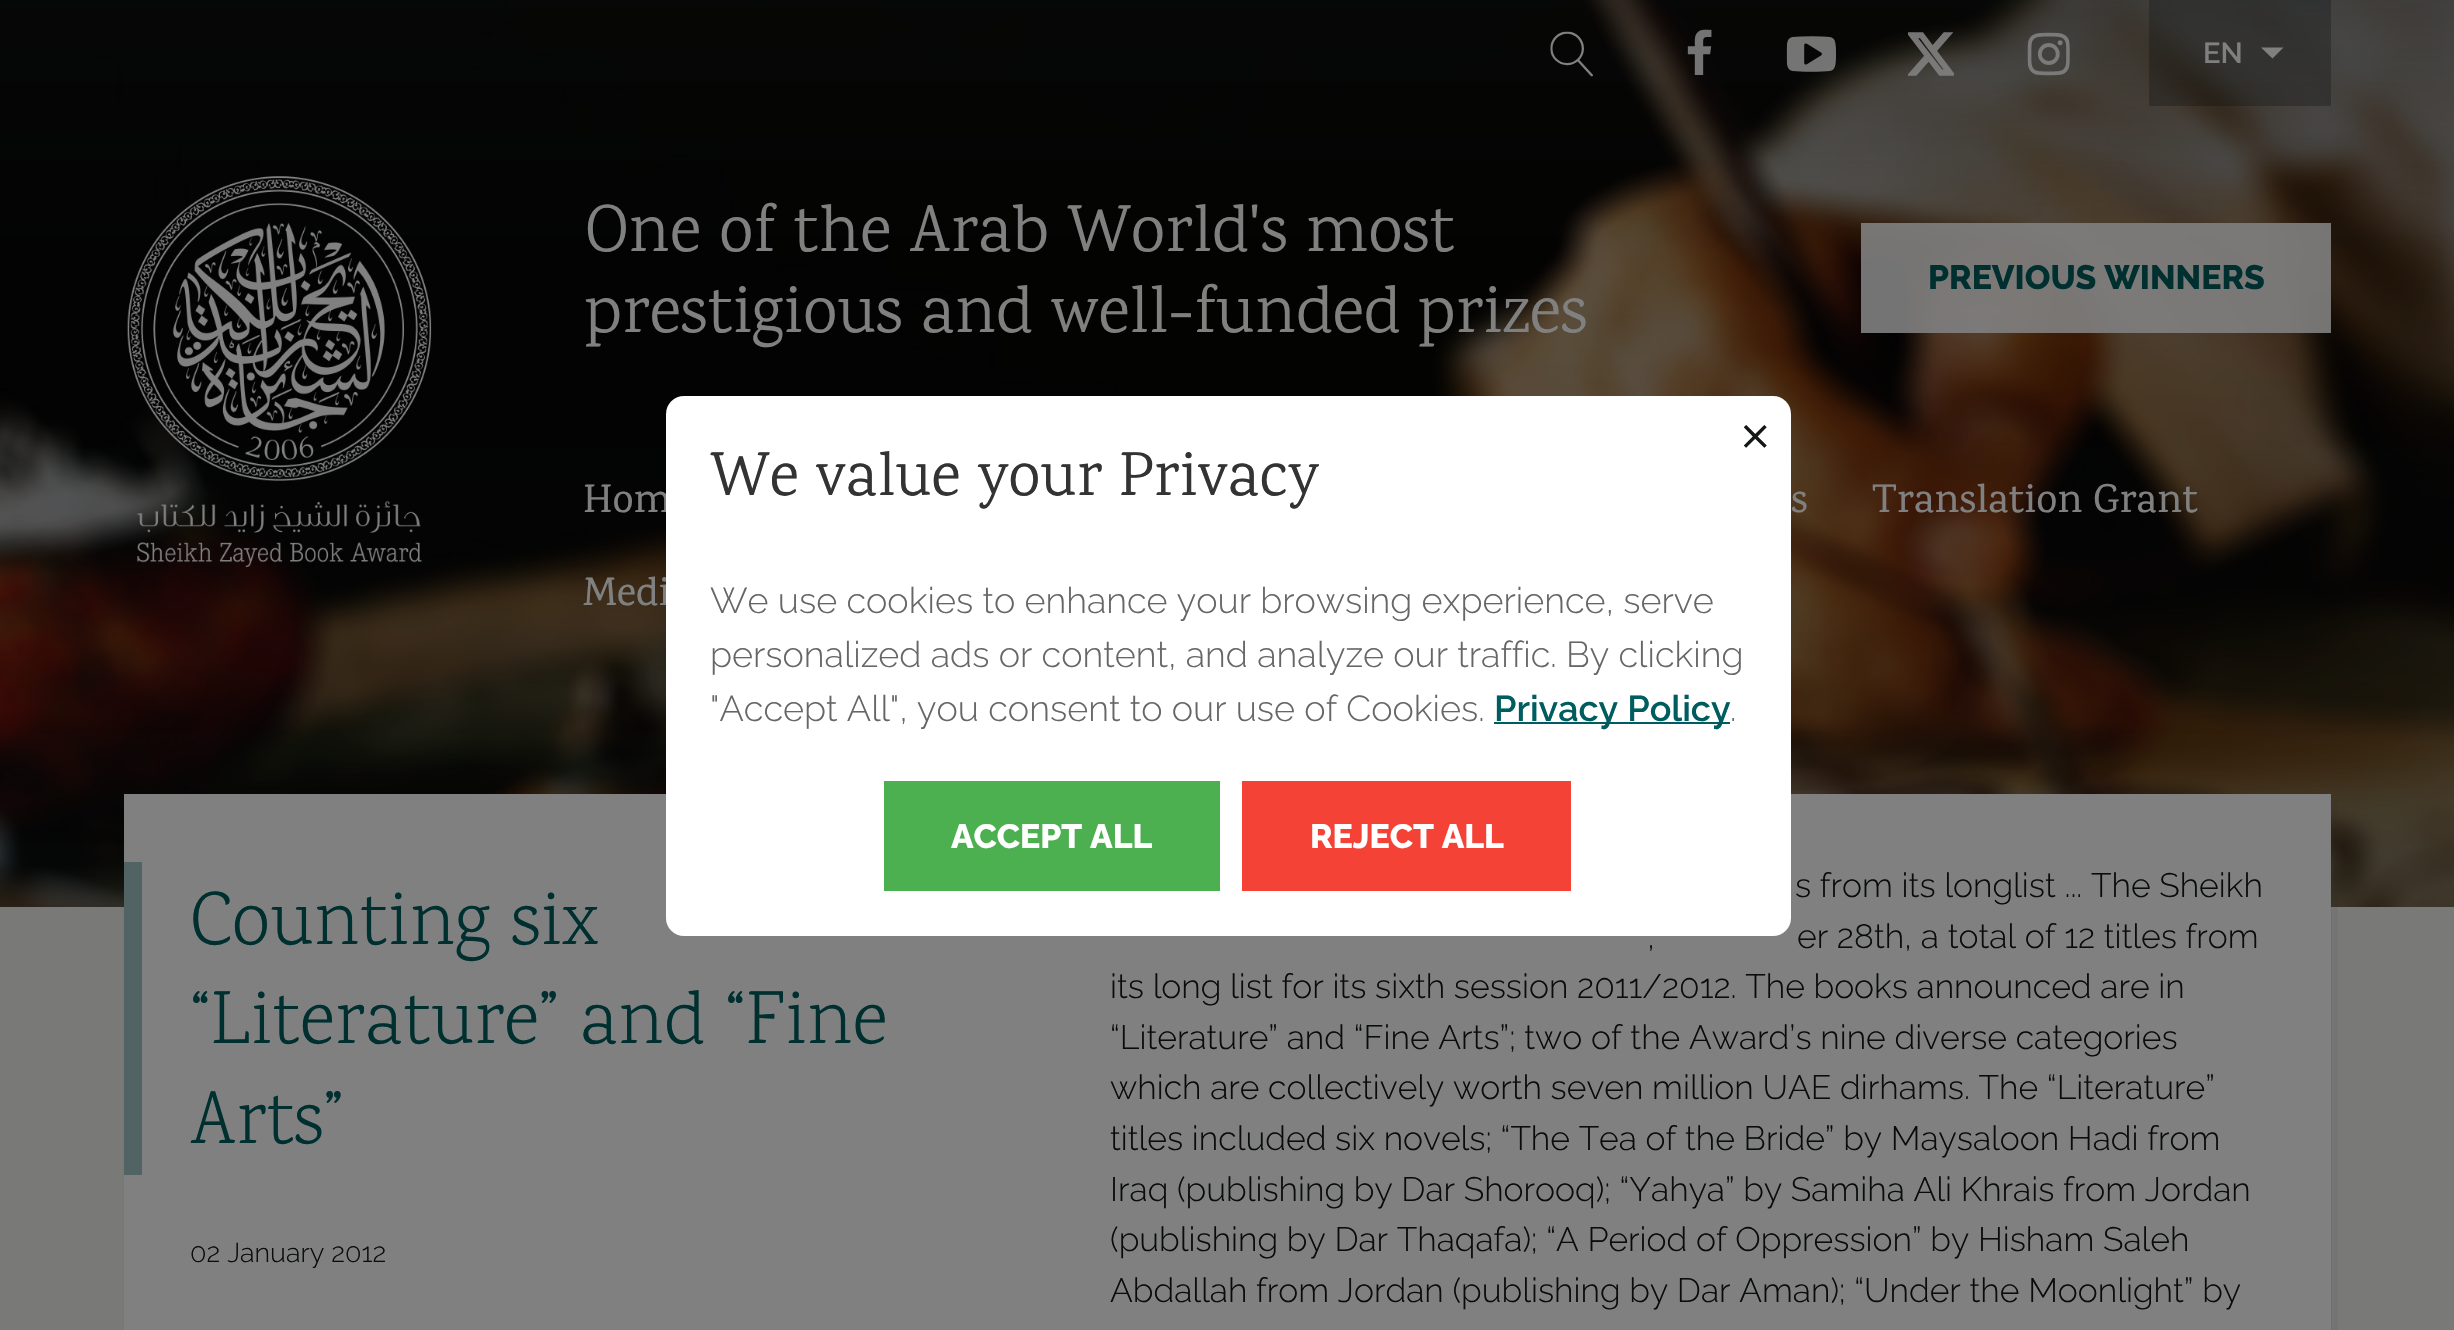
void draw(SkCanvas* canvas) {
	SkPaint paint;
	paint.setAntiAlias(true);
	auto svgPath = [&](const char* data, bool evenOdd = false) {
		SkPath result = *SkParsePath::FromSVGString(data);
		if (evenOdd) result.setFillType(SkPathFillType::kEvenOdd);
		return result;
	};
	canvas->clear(0xffffffff);
	canvas->drawImageRect(SkImages::DeferredFromEncodedData(SkData::MakeFromFileName("img1.png")), SkRect::MakeXYWH(0, 0, 2454, 907), SkSamplingOptions());
	{
		const SkColor colors[] = {0x4d0a0c0c, 0x000a0c0c, 0x1a0a0c0c, 0x660a0c0c};
		const float stops[] = {0, 0.25, 0.65, 1};
		const SkPoint ends[] = {{1227, 0}, {1227, 1087}};
		paint.setShader(SkGradientShader::MakeLinear(ends, colors, stops, 4, SkTileMode::kClamp));
		paint.setAlpha(255);
	}
	canvas->drawRect(SkRect::MakeXYWH(0, 0, 2454, 907), paint);
	canvas->drawImageRect(SkImages::DeferredFromEncodedData(SkData::MakeFromFileName("img2.png")), SkRect::MakeXYWH(1550, 31, 43, 46), SkSamplingOptions());
	canvas->drawImageRect(SkImages::DeferredFromEncodedData(SkData::MakeFromFileName("img3.png")), SkRect::MakeXYWH(1687, 29, 25, 46), SkSamplingOptions());
	canvas->drawImageRect(SkImages::DeferredFromEncodedData(SkData::MakeFromFileName("img4.png")), SkRect::MakeXYWH(1786, 36, 50, 36), SkSamplingOptions());
	canvas->drawImageRect(SkImages::DeferredFromEncodedData(SkData::MakeFromFileName("img5.png")), SkRect::MakeXYWH(1908, 32, 46, 44), SkSamplingOptions());
	canvas->drawImageRect(SkImages::DeferredFromEncodedData(SkData::MakeFromFileName("img6.png")), SkRect::MakeXYWH(2027, 32, 43, 44), SkSamplingOptions());
	paint.setShader(nullptr);
	paint.setColor(0x4d0a0c0c);
	canvas->drawRect(SkRect::MakeXYWH(2149, 0, 182, 106), paint);
	SkFont f1(fontMgr->matchFamilyStyle("Raleway", SkFontStyle(600, SkFontStyle::kNormal_Width, SkFontStyle::kUpright_Slant)), 29);
	f1.setSubpixel(true);
	paint.setColor(0xff808080);
	canvas->drawString("EN", 2203, 63, f1, paint);
	canvas->drawPath(svgPath("M2261 47.5H2283.5L2272.5 58.5Z"), paint);
	canvas->drawImageRect(SkImages::DeferredFromEncodedData(SkData::MakeFromFileName("img7.png")), SkRect::MakeXYWH(127, 176, 305, 391), SkSamplingOptions());
	SkFont f2(fontMgr->matchFamilyStyle("Karma", SkFontStyle::Normal()), 67.5);
	f2.setSubpixel(true);
	canvas->drawString("One of the Arab World's most", 585, 251, f2, paint);
	canvas->drawString("prestigious and well-funded prizes", 585, 332, f2, paint);
	paint.setColor(0xe6808080);
	canvas->drawRect(SkRect::MakeXYWH(1861, 223, 470, 110), paint);
	SkFont f3(fontMgr->matchFamilyStyle("Raleway", SkFontStyle(800, SkFontStyle::kNormal_Width, SkFontStyle::kUpright_Slant)), 33.75);
	f3.setSubpixel(true);
	paint.setColor(0xff002f30);
	canvas->drawString("PREVIOUS WINNERS", 1928, 289, f3, paint);
	SkFont f4(fontMgr->matchFamilyStyle("Karma", SkFontStyle(500, SkFontStyle::kNormal_Width, SkFontStyle::kUpright_Slant)), 40.5);
	f4.setSubpixel(true);
	paint.setColor(0xff808080);
	canvas->drawString("Hom", 583, 512, f4, paint);
	canvas->drawString("s", 1791, 512, f4, paint);
	canvas->drawString("Translation Grant", 1872, 512, f4, paint);
	canvas->drawString("Medi", 583, 605, f4, paint);
	paint.setColor(0xff797978);
	canvas->drawRect(SkRect::MakeXYWH(0, 907, 2454, 423), paint);
	paint.setColor(0x1a0a0c0c);
	paint.setMaskFilter(SkMaskFilter::MakeBlur(kNormal_SkBlurStyle, 1));
	canvas->drawRect(SkRect::MakeXYWH(124, 794, 2207, 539), paint);
	paint.setMaskFilter(nullptr);
	paint.setColor(0x0d0a0c0c);
	canvas->drawPath(svgPath("M131 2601V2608H2338V801H2331V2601Z"), paint);
	paint.setColor(0xff808080);
	canvas->drawRect(SkRect::MakeXYWH(124, 794, 2207, 536), paint);
	paint.setColor(0xff526363);
	canvas->drawRect(SkRect::MakeXYWH(124, 862, 18, 313), paint);
	SkFont f5(fontMgr->matchFamilyStyle("Karma", SkFontStyle(300, SkFontStyle::kNormal_Width, SkFontStyle::kUpright_Slant)), 76.5);
	f5.setSubpixel(true);
	paint.setColor(0xff002f30);
	canvas->drawString("Counting six", 190, 944, f5, paint);
	canvas->drawString("“Literature” and “Fine", 190, 1043, f5, paint);
	canvas->drawString("Arts”", 190, 1143, f5, paint);
	SkFont f6(fontMgr->matchFamilyStyle("Raleway", SkFontStyle(300, SkFontStyle::kNormal_Width, SkFontStyle::kUpright_Slant)), 27);
	f6.setSubpixel(true);
	paint.setColor(0xff0a0c0c);
	canvas->drawString("02 January 2012", 190, 1262, f6, paint);
	SkFont f7(fontMgr->matchFamilyStyle("Raleway", SkFontStyle(300, SkFontStyle::kNormal_Width, SkFontStyle::kUpright_Slant)), 33.75);
	f7.setSubpixel(true);
	canvas->drawString("s from its longlist ... The Sheikh", 1795, 897, f7, paint);
	canvas->drawString(",", 1647, 948, f7, paint);
	canvas->drawString("er 28th, a total of 12 titles from", 1797, 948, f7, paint);
	canvas->drawString("its long list for its sixth session 2011/2012. The books announced are in", 1110, 998, f7, paint);
	canvas->drawString("“Literature” and “Fine Arts”; two of the Award’s nine diverse categories", 1110, 1049, f7, paint);
	canvas->drawString("which are collectively worth seven million UAE dirhams. The “Literature”", 1110, 1099, f7, paint);
	canvas->drawString("titles included six novels; “The Tea of the Bride” by Maysaloon Hadi from", 1110, 1150, f7, paint);
	canvas->drawString("Iraq (publishing by Dar Shorooq); “Yahya” by Samiha Ali Khrais from Jordan", 1110, 1201, f7, paint);
	canvas->drawString("(publishing by Dar Thaqafa); “A Period of Oppression” by Hisham Saleh", 1110, 1251, f7, paint);
	canvas->drawString("Abdallah from Jordan (publishing by Dar Aman); “Under the Moonlight” by", 1110, 1302, f7, paint);
	paint.setColor(0xffffffff);
	canvas->drawRoundRect(SkRect::MakeXYWH(666, 396, 1125, 540), 18, 18, paint);
	SkFont f8(fontMgr->matchFamilyStyle("Raleway", SkFontStyle(300, SkFontStyle::kNormal_Width, SkFontStyle::kUpright_Slant)), 72);
	f8.setSubpixel(true);
	paint.setColor(0xff131717);
	canvas->drawString("×", 1739, 456, f8, paint);
	SkFont f9(fontMgr->matchFamilyStyle("Karma", SkFontStyle::Normal()), 63);
	f9.setSubpixel(true);
	paint.setColor(0xff333333);
	canvas->drawString("We value your Privacy", 710, 495, f9, paint);
	SkFont f10(fontMgr->matchFamilyStyle("Raleway", SkFontStyle(300, SkFontStyle::kNormal_Width, SkFontStyle::kUpright_Slant)), 36);
	f10.setSubpixel(true);
	paint.setColor(0xff666666);
	canvas->drawString("We use cookies to enhance your browsing experience, serve", 710, 613, f10, paint);
	canvas->drawString("personalized ads or content, and analyze our traffic. By clicking", 710, 667, f10, paint);
	canvas->drawString("\"Accept All\", you consent to our use of Cookies.", 710, 721, f10, paint);
	paint.setColor(0xff005d5f);
	canvas->drawRect(SkRect::MakeXYWH(1494, 722, 236, 2), paint);
	SkFont f11(fontMgr->matchFamilyStyle("Raleway", SkFontStyle(600, SkFontStyle::kNormal_Width, SkFontStyle::kUpright_Slant)), 36);
	f11.setSubpixel(true);
	canvas->drawString("Privacy Policy", 1494, 721, f11, paint);
	paint.setColor(0xff666666);
	canvas->drawString(".", 1730, 721, f10, paint);
	paint.setColor(0xff4caf50);
	canvas->drawRect(SkRect::MakeXYWH(884, 781, 336, 110), paint);
	paint.setColor(0xffffffff);
	canvas->drawString("ACCEPT ALL", 951, 848, f3, paint);
	paint.setColor(0xfff44336);
	canvas->drawRect(SkRect::MakeXYWH(1242, 781, 329, 110), paint);
	paint.setColor(0xffffffff);
	canvas->drawString("REJECT ALL", 1310, 848, f3, paint);
}
